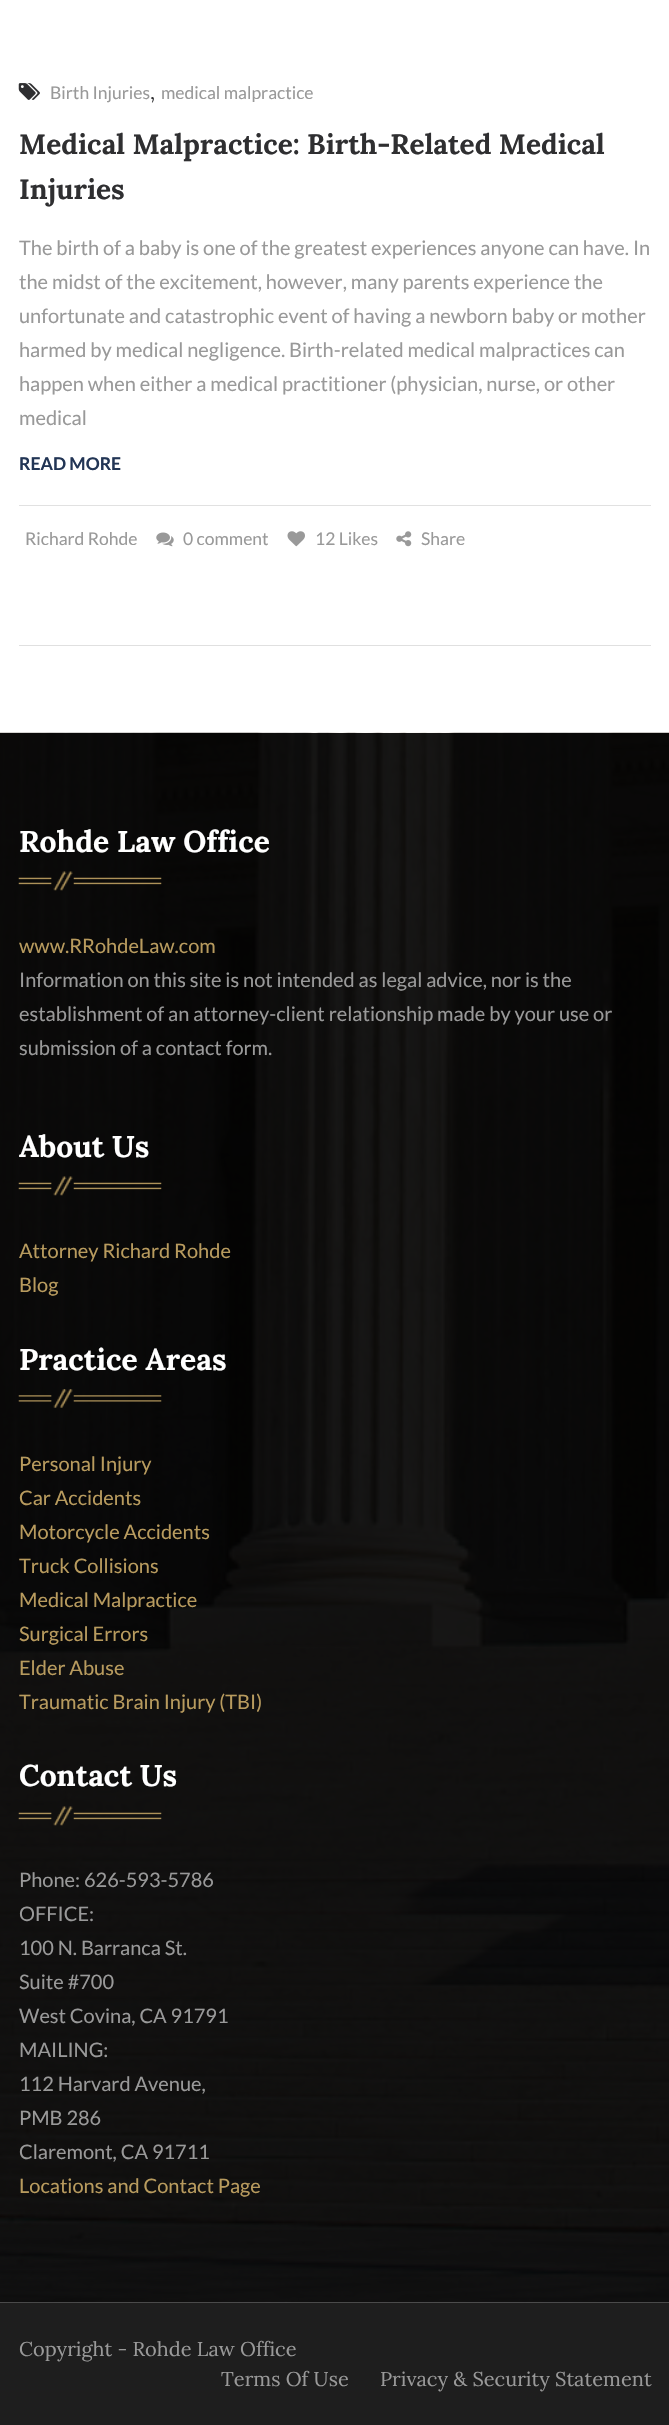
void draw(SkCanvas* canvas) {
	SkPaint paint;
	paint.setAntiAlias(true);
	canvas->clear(0xffffffff);
	canvas->drawImageRect(SkImages::DeferredFromEncodedData(SkData::MakeFromFileName("img1.png")), SkRect::MakeXYWH(18, 83, 22, 17), SkSamplingOptions());
	SkFont f1(fontMgr->matchFamilyStyle("Lato", SkFontStyle::Normal()), 17.5);
	f1.setSubpixel(true);
	paint.setColor(0xff999999);
	canvas->drawString("Birth Injuries", 50, 99, f1, paint);
	SkFont f2(fontMgr->matchFamilyStyle("Lora", SkFontStyle::Normal()), 20);
	f2.setSubpixel(true);
	paint.setColor(0xff2f2f31);
	canvas->drawString(",", 150, 99, f2, paint);
	paint.setColor(0xff999999);
	canvas->drawString("medical malpractice", 161, 99, f1, paint);
	SkFont f3(fontMgr->matchFamilyStyle("Lora", SkFontStyle::Bold()), 28);
	f3.setSubpixel(true);
	paint.setColor(0xff2f2f31);
	canvas->drawString("Medical Malpractice: Birth-Related Medical", 19, 154, f3, paint);
	canvas->drawString("Injuries", 19, 199, f3, paint);
	SkFont f4(fontMgr->matchFamilyStyle("Lato", SkFontStyle::Normal()), 20);
	f4.setSubpixel(true);
	paint.setColor(0xff999999);
	canvas->drawString("The birth of a baby is one of the greatest experiences anyone can have. In", 19, 255, f4, paint);
	canvas->drawString("the midst of the excitement, however, many parents experience the", 19, 289, f4, paint);
	canvas->drawString("unfortunate and catastrophic event of having a newborn baby or mother", 19, 323, f4, paint);
	canvas->drawString("harmed by medical negligence. Birth-related medical malpractices can", 19, 357, f4, paint);
	canvas->drawString("happen when either a medical practitioner (physician, nurse, or other", 19, 391, f4, paint);
	canvas->drawString("medical", 19, 425, f4, paint);
	SkFont f5(fontMgr->matchFamilyStyle("Lato", SkFontStyle::Bold()), 17.5);
	f5.setSubpixel(true);
	paint.setColor(0xff223555);
	canvas->drawString("READ MORE", 19, 470, f5, paint);
	paint.setColor(0xffe1e1e1);
	canvas->drawRect(SkRect::MakeXYWH(19, 505, 632, 1), paint);
	paint.setColor(0xff999999);
	canvas->drawString("Richard Rohde", 25, 545, f1, paint);
	canvas->drawImageRect(SkImages::DeferredFromEncodedData(SkData::MakeFromFileName("img2.png")), SkRect::MakeXYWH(156, 532, 18, 15), SkSamplingOptions());
	canvas->drawString("0 comment", 183, 545, f1, paint);
	canvas->drawImageRect(SkImages::DeferredFromEncodedData(SkData::MakeFromFileName("img3.png")), SkRect::MakeXYWH(287, 531, 18, 16), SkSamplingOptions());
	canvas->drawString("12 Likes", 315, 545, f1, paint);
	canvas->drawImageRect(SkImages::DeferredFromEncodedData(SkData::MakeFromFileName("img4.png")), SkRect::MakeXYWH(396, 531, 16, 16), SkSamplingOptions());
	canvas->drawString("Share", 421, 545, f1, paint);
	paint.setColor(0xffe0e0e0);
	canvas->drawRect(SkRect::MakeXYWH(19, 645, 632, 1), paint);
	canvas->drawImageRect(SkImages::DeferredFromEncodedData(SkData::MakeFromFileName("img5.png")), SkRect::MakeXYWH(0, 732, 669, 1571), SkSamplingOptions());
	SkFont f6(fontMgr->matchFamilyStyle("Lora", SkFontStyle::Bold()), 30);
	f6.setSubpixel(true);
	paint.setColor(0xffffffff);
	canvas->drawString("Rohde Law Office", 19, 852, f6, paint);
	canvas->drawImageRect(SkImages::DeferredFromEncodedData(SkData::MakeFromFileName("img6.png")), SkRect::MakeXYWH(18, 871, 144, 20), SkSamplingOptions());
	paint.setColor(0xffb89b5e);
	canvas->drawString("www.RRohdeLaw.com", 19, 953, f4, paint);
	paint.setColor(0xff999999);
	canvas->drawString("Information on this site is not intended as legal advice, nor is the", 19, 987, f4, paint);
	canvas->drawString("establishment of an attorney-client relationship made by your use or", 19, 1021, f4, paint);
	canvas->drawString("submission of a contact form.", 19, 1055, f4, paint);
	paint.setColor(0xffffffff);
	canvas->drawString("About Us", 19, 1157, f6, paint);
	canvas->drawImageRect(SkImages::DeferredFromEncodedData(SkData::MakeFromFileName("img7.png")), SkRect::MakeXYWH(18, 1176, 144, 20), SkSamplingOptions());
	paint.setColor(0xffb89b5e);
	canvas->drawString("Attorney Richard Rohde", 19, 1258, f4, paint);
	canvas->drawString("Blog", 19, 1292, f4, paint);
	paint.setColor(0xffffffff);
	canvas->drawString("Practice Areas", 19, 1370, f6, paint);
	canvas->drawImageRect(SkImages::DeferredFromEncodedData(SkData::MakeFromFileName("img8.png")), SkRect::MakeXYWH(18, 1389, 144, 19), SkSamplingOptions());
	paint.setColor(0xffb89b5e);
	canvas->drawString("Personal Injury", 19, 1471, f4, paint);
	canvas->drawString("Car Accidents", 19, 1505, f4, paint);
	canvas->drawString("Motorcycle Accidents", 19, 1539, f4, paint);
	canvas->drawString("Truck Collisions", 19, 1573, f4, paint);
	canvas->drawString("Medical Malpractice", 19, 1607, f4, paint);
	canvas->drawString("Surgical Errors", 19, 1641, f4, paint);
	canvas->drawString("Elder Abuse", 19, 1675, f4, paint);
	canvas->drawString("Traumatic Brain Injury (TBI)", 19, 1709, f4, paint);
	paint.setColor(0xffffffff);
	canvas->drawString("Contact Us", 19, 1786, f6, paint);
	canvas->drawImageRect(SkImages::DeferredFromEncodedData(SkData::MakeFromFileName("img9.png")), SkRect::MakeXYWH(18, 1806, 144, 20), SkSamplingOptions());
	paint.setColor(0xff999999);
	canvas->drawString("Phone: 626-593-5786", 19, 1887, f4, paint);
	canvas->drawString("OFFICE:", 19, 1921, f4, paint);
	canvas->drawString("100 N. Barranca St.", 19, 1955, f4, paint);
	canvas->drawString("Suite #700", 19, 1989, f4, paint);
	canvas->drawString("West Covina, CA 91791", 19, 2023, f4, paint);
	canvas->drawString("MAILING:", 19, 2057, f4, paint);
	canvas->drawString("112 Harvard Avenue,", 19, 2091, f4, paint);
	canvas->drawString("PMB 286", 19, 2125, f4, paint);
	canvas->drawString("Claremont, CA 91711", 19, 2159, f4, paint);
	paint.setColor(0xffb89b5e);
	canvas->drawString("Locations and Contact Page", 19, 2193, f4, paint);
	paint.setColor(0xff1e1e1e);
	canvas->drawRect(SkRect::MakeXYWH(0, 2303, 669, 122), paint);
	paint.setColor(0xff999999);
	canvas->drawString("Copyright - Rohde Law Office", 19, 2356, f2, paint);
	canvas->drawString("Terms Of Use", 221, 2386, f2, paint);
	canvas->drawString("Privacy & Security Statement", 380, 2386, f2, paint);
}
